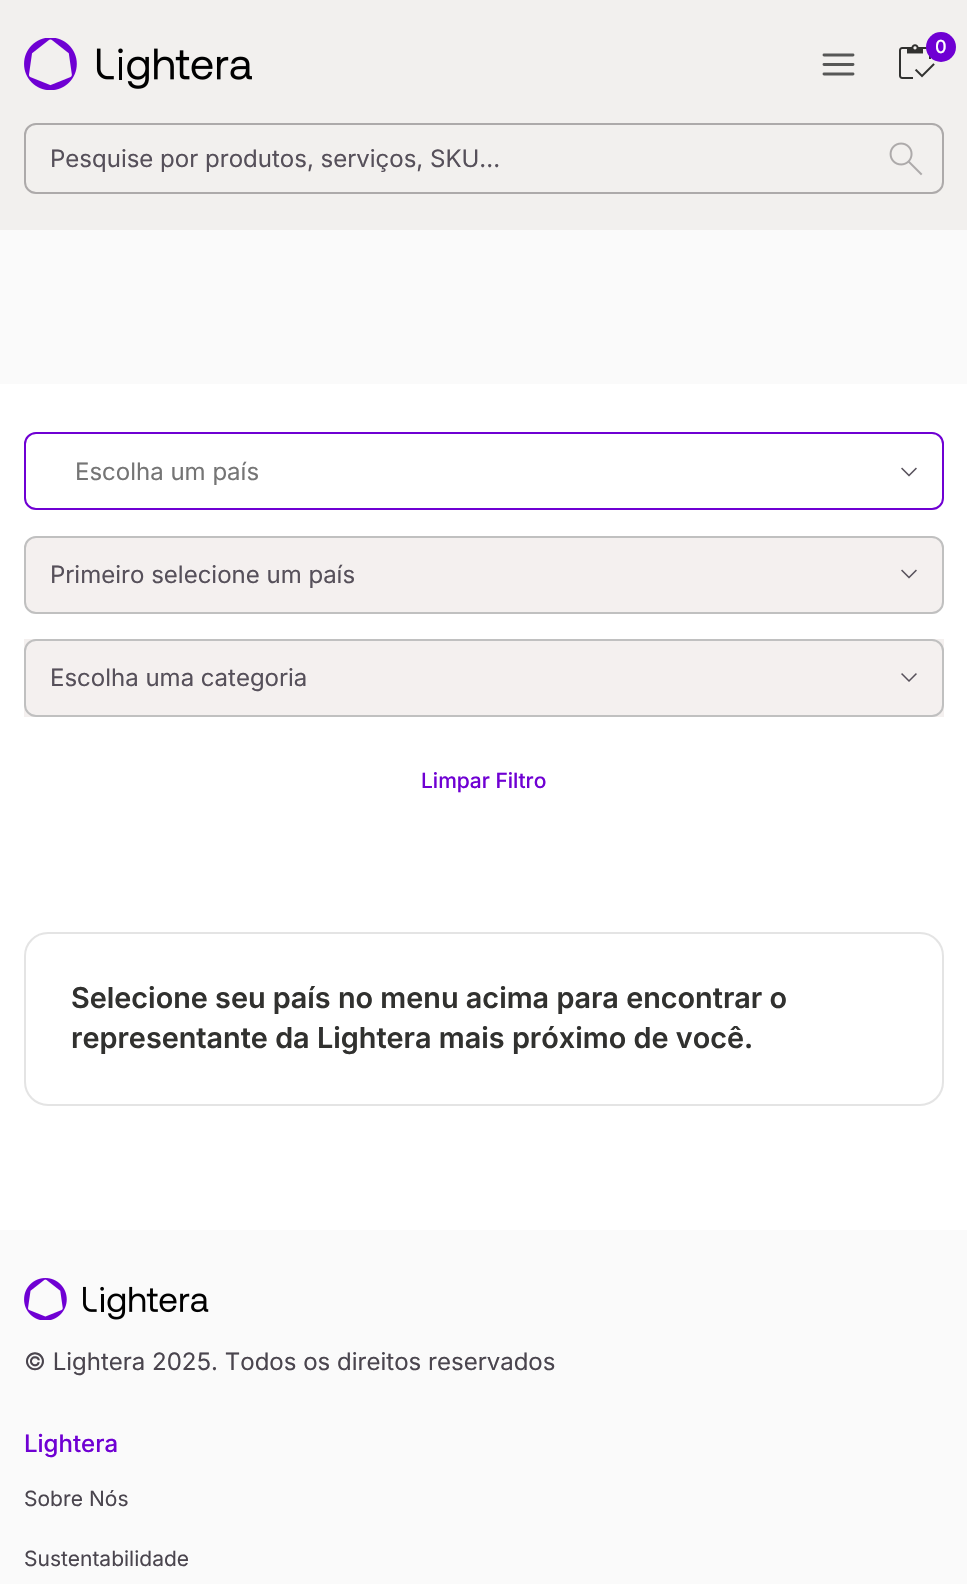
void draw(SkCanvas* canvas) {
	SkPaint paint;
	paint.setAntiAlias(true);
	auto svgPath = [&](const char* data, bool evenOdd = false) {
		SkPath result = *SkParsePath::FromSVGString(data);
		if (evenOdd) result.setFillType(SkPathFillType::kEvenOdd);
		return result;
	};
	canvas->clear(0xffffffff);
	paint.setColor(0xfff2f0ee);
	canvas->drawRect(SkRect::MakeXYWH(0, 0, 967, 230), paint);
	canvas->drawImageRect(SkImages::DeferredFromEncodedData(SkData::MakeFromFileName("img1.png")), SkRect::MakeXYWH(24, 38, 228, 52), SkSamplingOptions());
	canvas->drawImageRect(SkImages::DeferredFromEncodedData(SkData::MakeFromFileName("img2.png")), SkRect::MakeXYWH(899, 44, 36, 35), SkSamplingOptions());
	paint.setColor(0xff6f00d3);
	canvas->drawCircle(941, 47, 15, paint);
	SkFont f1(fontMgr->matchFamilyStyle("Inter", SkFontStyle(500, SkFontStyle::kNormal_Width, SkFontStyle::kUpright_Slant)), 18);
	f1.setSubpixel(true);
	paint.setColor(0xffffffff);
	canvas->drawString("0", 935, 53, f1, paint);
	paint.setStroke(true);
	paint.setStrokeWidth(2.9);
	paint.setStrokeCap(SkPaint::kRound_Cap);
	paint.setColor(0xff575756);
	canvas->drawPath(svgPath("M824 55H853M824 64.5H853M824 74H853"), paint);
	paint.setStrokeWidth(2);
	paint.setStrokeCap(SkPaint::kButt_Cap);
	paint.setColor(0xffadaaaa);
	canvas->drawRoundRect(SkRect::MakeXYWH(25, 124, 918, 69), 11, 11, paint);
	SkFont f2(fontMgr->matchFamilyStyle("Inter", SkFontStyle::Normal()), 24);
	f2.setSubpixel(true);
	paint.setStroke(false);
	paint.setColor(0xff56505a);
	canvas->drawString("Pesquise por produtos, serviços, SKU...", 50, 167, f2, paint);
	canvas->drawImageRect(SkImages::DeferredFromEncodedData(SkData::MakeFromFileName("img3.png")), SkRect::MakeXYWH(889, 142, 34, 34), SkSamplingOptions());
	paint.setColor(0xfffafafa);
	canvas->drawRect(SkRect::MakeXYWH(0, 230, 967, 154), paint);
	paint.setStroke(true);
	paint.setColor(0xff6f00d3);
	canvas->drawRoundRect(SkRect::MakeXYWH(25, 433, 918, 76), 11, 11, paint);
	paint.setStroke(false);
	paint.setColor(0xff757575);
	canvas->drawString("Escolha um país", 75, 480, f2, paint);
	canvas->drawImageRect(SkImages::DeferredFromEncodedData(SkData::MakeFromFileName("img4.png")), SkRect::MakeXYWH(901, 467, 16, 10), SkSamplingOptions());
	paint.setColor(0xfff4f0ef);
	canvas->drawRoundRect(SkRect::MakeXYWH(25, 537, 918, 76), 11, 11, paint);
	paint.setStroke(true);
	paint.setColor(0xffc0c0c0);
	canvas->drawRoundRect(SkRect::MakeXYWH(25, 537, 918, 76), 11, 11, paint);
	paint.setStroke(false);
	paint.setColor(0xff56505a);
	canvas->drawString("Primeiro selecione um país", 50, 583, f2, paint);
	canvas->drawImageRect(SkImages::DeferredFromEncodedData(SkData::MakeFromFileName("img5.png")), SkRect::MakeXYWH(901, 569, 16, 10), SkSamplingOptions());
	paint.setColor(0xfff4f0ef);
	canvas->drawRect(SkRect::MakeXYWH(24, 639, 920, 78), paint);
	paint.setStroke(true);
	paint.setColor(0xffc0c0c0);
	canvas->drawRoundRect(SkRect::MakeXYWH(25, 640, 918, 76), 11, 11, paint);
	paint.setStroke(false);
	paint.setColor(0xff56505a);
	canvas->drawString("Escolha uma categoria", 50, 686, f2, paint);
	canvas->drawImageRect(SkImages::DeferredFromEncodedData(SkData::MakeFromFileName("img6.png")), SkRect::MakeXYWH(901, 673, 16, 9), SkSamplingOptions());
	SkFont f3(fontMgr->matchFamilyStyle("Inter", SkFontStyle(500, SkFontStyle::kNormal_Width, SkFontStyle::kUpright_Slant)), 21);
	f3.setSubpixel(true);
	paint.setColor(0xff6f00d3);
	canvas->drawString("Limpar Filtro", 421, 788, f3, paint);
	paint.setStroke(true);
	paint.setColor(0xffe4e4e4);
	canvas->drawRoundRect(SkRect::MakeXYWH(25, 933, 918, 172), 23, 23, paint);
	SkFont f4(fontMgr->matchFamilyStyle("Inter", SkFontStyle(600, SkFontStyle::kNormal_Width, SkFontStyle::kUpright_Slant)), 28.8);
	f4.setSubpixel(true);
	paint.setStroke(false);
	paint.setColor(0xff31312f);
	canvas->drawString("Selecione seu país no menu acima para encontrar o", 71, 1008, f4, paint);
	canvas->drawString("representante da Lightera mais próximo de você.", 71, 1048, f4, paint);
	paint.setColor(0xfffafafa);
	canvas->drawRect(SkRect::MakeXYWH(0, 1230, 967, 354), paint);
	canvas->drawImageRect(SkImages::DeferredFromEncodedData(SkData::MakeFromFileName("img7.png")), SkRect::MakeXYWH(24, 1278, 185, 42), SkSamplingOptions());
	paint.setColor(0xff4a454e);
	canvas->drawString("© Lightera 2025. Todos os direitos reservados", 24, 1370, f2, paint);
	SkFont f5(fontMgr->matchFamilyStyle("Inter", SkFontStyle(500, SkFontStyle::kNormal_Width, SkFontStyle::kUpright_Slant)), 24);
	f5.setSubpixel(true);
	paint.setColor(0xff6f00d3);
	canvas->drawString("Lightera", 24, 1452, f5, paint);
	SkFont f6(fontMgr->matchFamilyStyle("Inter", SkFontStyle::Normal()), 21);
	f6.setSubpixel(true);
	paint.setColor(0xff4a454e);
	canvas->drawString("Sobre Nós", 24, 1506, f6, paint);
	canvas->drawString("Sustentabilidade", 24, 1566, f6, paint);
}
